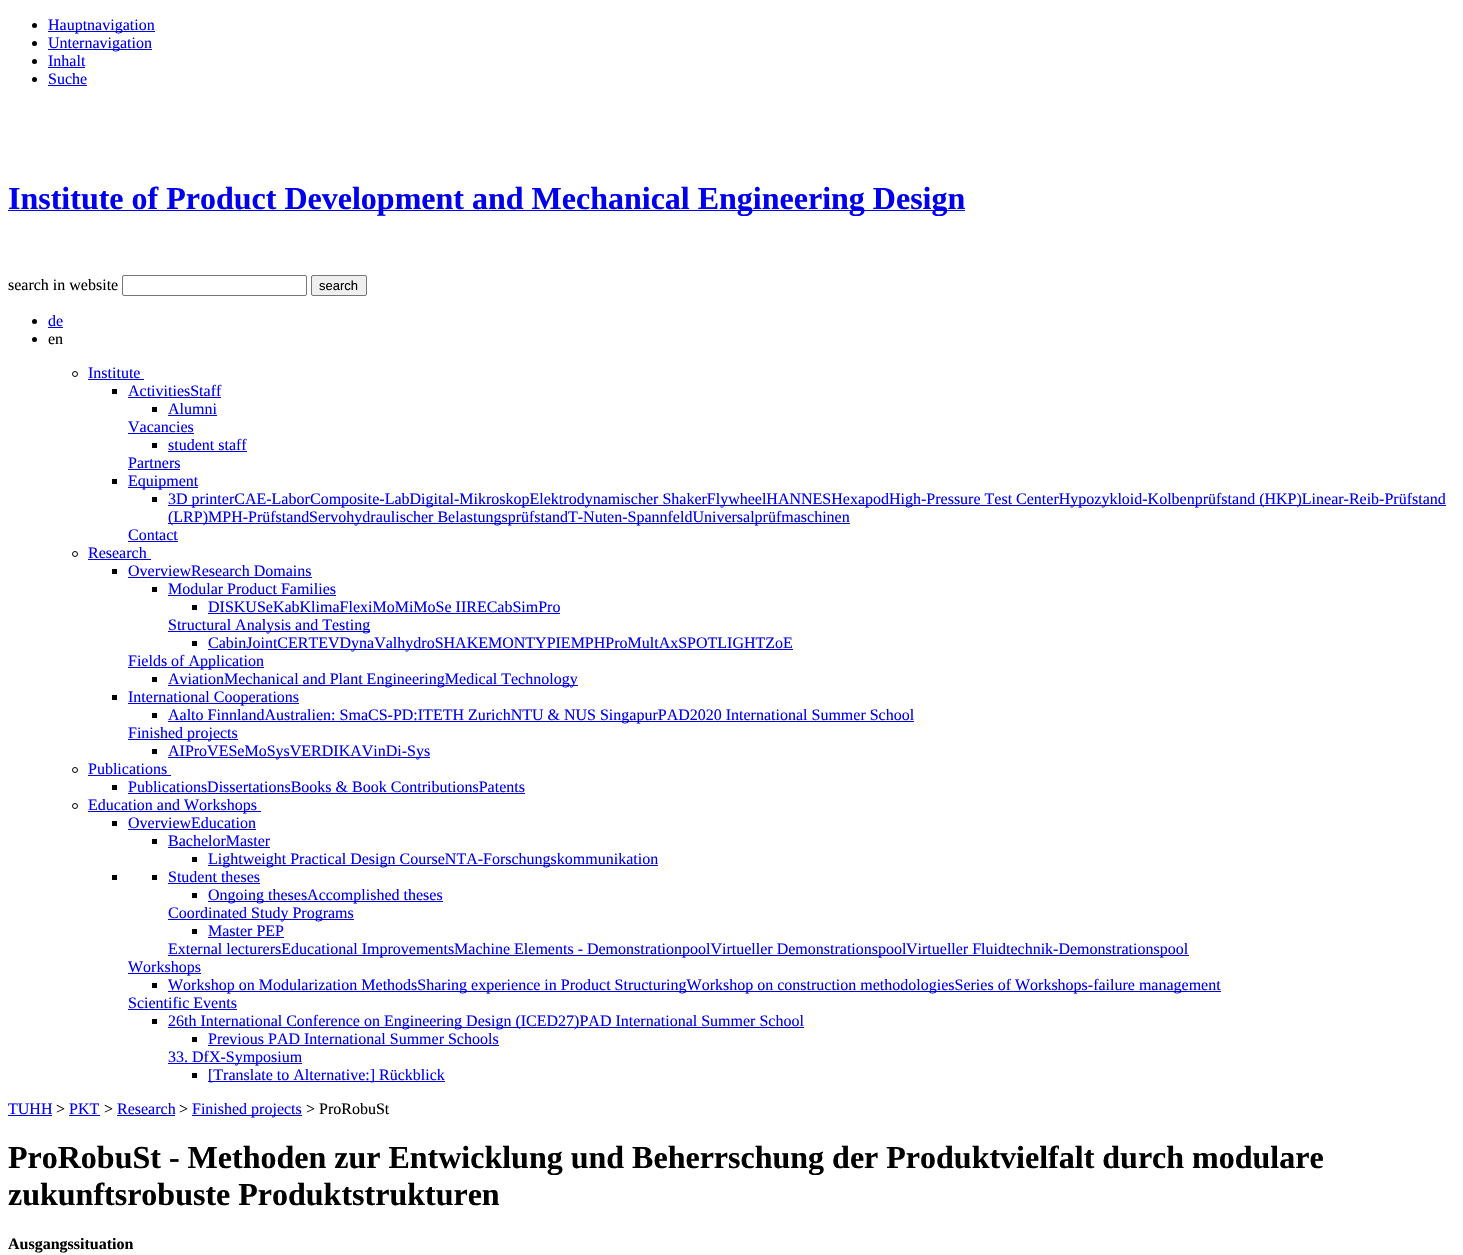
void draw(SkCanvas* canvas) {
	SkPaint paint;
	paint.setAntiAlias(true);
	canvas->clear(0xffffffff);
	paint.setColor(0xff000000);
	canvas->drawCircle(34.5, 25.5, 2.5, paint);
	paint.setColor(0xff0000ee);
	canvas->drawRect(SkRect::MakeXYWH(48, 31, 107, 1), paint);
	SkFont f1(fontMgr->matchFamilyStyle("Liberation Serif", SkFontStyle::Normal()), 16);
	f1.setSubpixel(true);
	canvas->drawString("Hauptnavigation", 48, 30, f1, paint);
	paint.setColor(0xff000000);
	canvas->drawCircle(34.5, 43.5, 2.5, paint);
	paint.setColor(0xff0000ee);
	canvas->drawRect(SkRect::MakeXYWH(48, 49, 104, 1), paint);
	canvas->drawString("Unternavigation", 48, 48, f1, paint);
	paint.setColor(0xff000000);
	canvas->drawCircle(34.5, 61.5, 2.5, paint);
	paint.setColor(0xff0000ee);
	canvas->drawString("Inhalt", 48, 66, f1, paint);
	canvas->drawRect(SkRect::MakeXYWH(48, 67, 37, 1), paint);
	paint.setColor(0xff000000);
	canvas->drawCircle(34.5, 79.5, 2.5, paint);
	paint.setColor(0xff0000ee);
	canvas->drawString("Suche", 48, 84, f1, paint);
	canvas->drawRect(SkRect::MakeXYWH(48, 85, 39, 1), paint);
	canvas->drawRect(SkRect::MakeXYWH(8, 210, 957, 1), paint);
	SkFont f2(fontMgr->matchFamilyStyle("Liberation Serif", SkFontStyle::Bold()), 32);
	f2.setSubpixel(true);
	canvas->drawString("Institute of Product Development and Mechanical Engineering Design", 8, 209, f2, paint);
	paint.setColor(0xff000000);
	canvas->drawString("search in website", 8, 290, f1, paint);
	paint.setStroke(true);
	paint.setStrokeWidth(1);
	paint.setColor(0xff767676);
	canvas->drawRoundRect(SkRect::MakeXYWH(122.5, 275.5, 184, 20), 1.5, 1.5, paint);
	paint.setStroke(false);
	paint.setColor(0xffefefef);
	canvas->drawRoundRect(SkRect::MakeXYWH(311.5, 275.5, 55, 20), 1.5, 1.5, paint);
	paint.setStroke(true);
	paint.setColor(0xff767676);
	canvas->drawRoundRect(SkRect::MakeXYWH(311.5, 275.5, 55, 20), 1.5, 1.5, paint);
	SkFont f3(fontMgr->matchFamilyStyle("Liberation Sans", SkFontStyle::Normal()), 13);
	f3.setSubpixel(true);
	paint.setStroke(false);
	paint.setColor(0xff000000);
	canvas->drawString("search", 319, 290, f3, paint);
	canvas->drawCircle(34.5, 321.5, 2.5, paint);
	paint.setColor(0xff0000ee);
	canvas->drawString("de", 48, 326, f1, paint);
	canvas->drawRect(SkRect::MakeXYWH(48, 327, 15, 1), paint);
	paint.setColor(0xff000000);
	canvas->drawCircle(34.5, 339.5, 2.5, paint);
	canvas->drawString("en", 48, 344, f1, paint);
	paint.setStroke(true);
	canvas->drawCircle(75, 374, 2.5, paint);
	paint.setStroke(false);
	paint.setColor(0xff0000ee);
	canvas->drawString("Institute", 88, 378, f1, paint);
	canvas->drawRect(SkRect::MakeXYWH(88, 379, 56, 1), paint);
	paint.setColor(0xff000000);
	canvas->drawRect(SkRect::MakeXYWH(112, 389, 5, 5), paint);
	paint.setColor(0xff0000ee);
	canvas->drawString("ActivitiesStaff", 128, 396, f1, paint);
	canvas->drawRect(SkRect::MakeXYWH(128, 397, 93, 1), paint);
	paint.setColor(0xff000000);
	canvas->drawRect(SkRect::MakeXYWH(152, 407, 5, 5), paint);
	paint.setColor(0xff0000ee);
	canvas->drawString("Alumni", 168, 414, f1, paint);
	canvas->drawRect(SkRect::MakeXYWH(168, 415, 49, 1), paint);
	canvas->drawString("Vacancies", 128, 432, f1, paint);
	canvas->drawRect(SkRect::MakeXYWH(128, 433, 66, 1), paint);
	paint.setColor(0xff000000);
	canvas->drawRect(SkRect::MakeXYWH(152, 443, 5, 5), paint);
	paint.setColor(0xff0000ee);
	canvas->drawString("student staff", 168, 450, f1, paint);
	canvas->drawRect(SkRect::MakeXYWH(168, 451, 79, 1), paint);
	canvas->drawString("Partners", 128, 468, f1, paint);
	canvas->drawRect(SkRect::MakeXYWH(128, 469, 52, 1), paint);
	paint.setColor(0xff000000);
	canvas->drawRect(SkRect::MakeXYWH(112, 479, 5, 5), paint);
	paint.setColor(0xff0000ee);
	canvas->drawRect(SkRect::MakeXYWH(128, 487, 70, 1), paint);
	canvas->drawString("Equipment", 128, 486, f1, paint);
	paint.setColor(0xff000000);
	canvas->drawRect(SkRect::MakeXYWH(152, 497, 5, 5), paint);
	paint.setColor(0xff0000ee);
	canvas->drawRect(SkRect::MakeXYWH(168, 505, 66, 1), paint);
	canvas->drawString("3D printerCAE-Labor", 168, 504, f1, paint);
	canvas->drawRect(SkRect::MakeXYWH(234, 505, 1212, 1), paint);
	canvas->drawString("Composite-LabDigital-MikroskopElektrodynamischer ShakerFlywheelHANNESHexapodHigh-Pressure Test CenterHypozykloid-Kolbenprüfstand (HKP)Linear-Reib-Prüfstand", 310, 504, f1, paint);
	canvas->drawRect(SkRect::MakeXYWH(168, 523, 141, 1), paint);
	canvas->drawString("(LRP)MPH-Prüfstand", 168, 522, f1, paint);
	canvas->drawRect(SkRect::MakeXYWH(309, 523, 259, 1), paint);
	canvas->drawString("Servohydraulischer Belastungsprüfstand", 309, 522, f1, paint);
	canvas->drawRect(SkRect::MakeXYWH(568, 523, 282, 1), paint);
	canvas->drawString("T-Nuten-SpannfeldUniversalprüfmaschinen", 568, 522, f1, paint);
	canvas->drawString("Contact", 128, 540, f1, paint);
	canvas->drawRect(SkRect::MakeXYWH(128, 541, 50, 1), paint);
	paint.setStroke(true);
	paint.setColor(0xff000000);
	canvas->drawCircle(75, 554, 2.5, paint);
	paint.setStroke(false);
	paint.setColor(0xff0000ee);
	canvas->drawString("Research", 88, 558, f1, paint);
	canvas->drawRect(SkRect::MakeXYWH(88, 559, 63, 1), paint);
	paint.setColor(0xff000000);
	canvas->drawRect(SkRect::MakeXYWH(112, 569, 5, 5), paint);
	paint.setColor(0xff0000ee);
	canvas->drawString("OverviewResearch Domains", 128, 576, f1, paint);
	canvas->drawRect(SkRect::MakeXYWH(128, 577, 184, 1), paint);
	paint.setColor(0xff000000);
	canvas->drawRect(SkRect::MakeXYWH(152, 587, 5, 5), paint);
	paint.setColor(0xff0000ee);
	canvas->drawString("Modular Product Families", 168, 594, f1, paint);
	canvas->drawRect(SkRect::MakeXYWH(168, 595, 168, 1), paint);
	paint.setColor(0xff000000);
	canvas->drawRect(SkRect::MakeXYWH(192, 605, 5, 5), paint);
	paint.setColor(0xff0000ee);
	canvas->drawString("DISKUSeKabKlimaFlexiMoMiMoSe IIRECabSimPro", 208, 612, f1, paint);
	canvas->drawRect(SkRect::MakeXYWH(208, 613, 352, 1), paint);
	canvas->drawRect(SkRect::MakeXYWH(168, 631, 202, 1), paint);
	canvas->drawString("Structural Analysis and Testing", 168, 630, f1, paint);
	paint.setColor(0xff000000);
	canvas->drawRect(SkRect::MakeXYWH(192, 641, 5, 5), paint);
	paint.setColor(0xff0000ee);
	canvas->drawRect(SkRect::MakeXYWH(208, 649, 470, 1), paint);
	canvas->drawString("CabinJointCERTEVDynaValhydroSHAKEMONTYPIEMPHProMultAxSPOTLIGHTZoE", 208, 648, f1, paint);
	canvas->drawRect(SkRect::MakeXYWH(678, 649, 115, 1), paint);
	canvas->drawRect(SkRect::MakeXYWH(128, 667, 136, 1), paint);
	canvas->drawString("Fields of Application", 128, 666, f1, paint);
	paint.setColor(0xff000000);
	canvas->drawRect(SkRect::MakeXYWH(152, 677, 5, 5), paint);
	paint.setColor(0xff0000ee);
	canvas->drawRect(SkRect::MakeXYWH(168, 685, 410, 1), paint);
	canvas->drawString("AviationMechanical and Plant EngineeringMedical Technology", 168, 684, f1, paint);
	paint.setColor(0xff000000);
	canvas->drawRect(SkRect::MakeXYWH(112, 695, 5, 5), paint);
	paint.setColor(0xff0000ee);
	canvas->drawRect(SkRect::MakeXYWH(128, 703, 171, 1), paint);
	canvas->drawString("International Cooperations", 128, 702, f1, paint);
	paint.setColor(0xff000000);
	canvas->drawRect(SkRect::MakeXYWH(152, 713, 5, 5), paint);
	paint.setColor(0xff0000ee);
	canvas->drawRect(SkRect::MakeXYWH(168, 721, 746, 1), paint);
	canvas->drawString("Aalto FinnlandAustralien: SmaCS-PD:ITETH ZurichNTU & NUS SingapurPAD2020 International Summer School", 168, 720, f1, paint);
	canvas->drawRect(SkRect::MakeXYWH(128, 739, 110, 1), paint);
	canvas->drawString("Finished projects", 128, 738, f1, paint);
	paint.setColor(0xff000000);
	canvas->drawRect(SkRect::MakeXYWH(152, 749, 5, 5), paint);
	paint.setColor(0xff0000ee);
	canvas->drawRect(SkRect::MakeXYWH(168, 757, 262, 1), paint);
	canvas->drawString("AIProVESeMoSysVERDIKAVinDi-Sys", 168, 756, f1, paint);
	paint.setStroke(true);
	paint.setColor(0xff000000);
	canvas->drawCircle(75, 770, 2.5, paint);
	paint.setStroke(false);
	paint.setColor(0xff0000ee);
	canvas->drawString("Publications", 88, 774, f1, paint);
	canvas->drawRect(SkRect::MakeXYWH(88, 775, 83, 1), paint);
	paint.setColor(0xff000000);
	canvas->drawRect(SkRect::MakeXYWH(112, 785, 5, 5), paint);
	paint.setColor(0xff0000ee);
	canvas->drawString("PublicationsDissertationsBooks & Book ContributionsPatents", 128, 792, f1, paint);
	canvas->drawRect(SkRect::MakeXYWH(128, 793, 397, 1), paint);
	paint.setStroke(true);
	paint.setColor(0xff000000);
	canvas->drawCircle(75, 806, 2.5, paint);
	paint.setStroke(false);
	paint.setColor(0xff0000ee);
	canvas->drawRect(SkRect::MakeXYWH(88, 811, 173, 1), paint);
	canvas->drawString("Education and Workshops", 88, 810, f1, paint);
	paint.setColor(0xff000000);
	canvas->drawRect(SkRect::MakeXYWH(112, 821, 5, 5), paint);
	paint.setColor(0xff0000ee);
	canvas->drawString("OverviewEducation", 128, 828, f1, paint);
	canvas->drawRect(SkRect::MakeXYWH(128, 829, 128, 1), paint);
	paint.setColor(0xff000000);
	canvas->drawRect(SkRect::MakeXYWH(152, 839, 5, 5), paint);
	paint.setColor(0xff0000ee);
	canvas->drawString("BachelorMaster", 168, 846, f1, paint);
	canvas->drawRect(SkRect::MakeXYWH(168, 847, 102, 1), paint);
	paint.setColor(0xff000000);
	canvas->drawRect(SkRect::MakeXYWH(192, 857, 5, 5), paint);
	paint.setColor(0xff0000ee);
	canvas->drawRect(SkRect::MakeXYWH(208, 865, 450, 1), paint);
	canvas->drawString("Lightweight Practical Design CourseNTA-Forschungskommunikation", 208, 864, f1, paint);
	paint.setColor(0xff000000);
	canvas->drawRect(SkRect::MakeXYWH(112, 875, 5, 5), paint);
	canvas->drawRect(SkRect::MakeXYWH(152, 875, 5, 5), paint);
	paint.setColor(0xff0000ee);
	canvas->drawString("Student theses", 168, 882, f1, paint);
	canvas->drawRect(SkRect::MakeXYWH(168, 883, 92, 1), paint);
	paint.setColor(0xff000000);
	canvas->drawRect(SkRect::MakeXYWH(192, 893, 5, 5), paint);
	paint.setColor(0xff0000ee);
	canvas->drawRect(SkRect::MakeXYWH(208, 901, 235, 1), paint);
	canvas->drawString("Ongoing thesesAccomplished theses", 208, 900, f1, paint);
	canvas->drawRect(SkRect::MakeXYWH(168, 919, 186, 1), paint);
	canvas->drawString("Coordinated Study Programs", 168, 918, f1, paint);
	paint.setColor(0xff000000);
	canvas->drawRect(SkRect::MakeXYWH(192, 929, 5, 5), paint);
	paint.setColor(0xff0000ee);
	canvas->drawString("Master PEP", 208, 936, f1, paint);
	canvas->drawRect(SkRect::MakeXYWH(208, 937, 76, 1), paint);
	canvas->drawRect(SkRect::MakeXYWH(168, 955, 738, 1), paint);
	canvas->drawString("External lecturersEducational ImprovementsMachine Elements - DemonstrationpoolVirtueller Demonstrationspool", 168, 954, f1, paint);
	canvas->drawRect(SkRect::MakeXYWH(906, 955, 283, 1), paint);
	canvas->drawString("Virtueller Fluidtechnik-Demonstrationspool", 906, 954, f1, paint);
	canvas->drawRect(SkRect::MakeXYWH(128, 973, 73, 1), paint);
	canvas->drawString("Workshops", 128, 972, f1, paint);
	paint.setColor(0xff000000);
	canvas->drawRect(SkRect::MakeXYWH(152, 983, 5, 5), paint);
	paint.setColor(0xff0000ee);
	canvas->drawRect(SkRect::MakeXYWH(168, 991, 1053, 1), paint);
	canvas->drawString("Workshop on Modularization MethodsSharing experience in Product StructuringWorkshop on construction methodologiesSeries of Workshops-failure management", 168, 990, f1, paint);
	canvas->drawString("Scientific Events", 128, 1008, f1, paint);
	canvas->drawRect(SkRect::MakeXYWH(128, 1009, 109, 1), paint);
	paint.setColor(0xff000000);
	canvas->drawRect(SkRect::MakeXYWH(152, 1019, 5, 5), paint);
	paint.setColor(0xff0000ee);
	canvas->drawRect(SkRect::MakeXYWH(168, 1027, 636, 1), paint);
	canvas->drawString("26th International Conference on Engineering Design (ICED27)PAD International Summer School", 168, 1026, f1, paint);
	paint.setColor(0xff000000);
	canvas->drawRect(SkRect::MakeXYWH(192, 1037, 5, 5), paint);
	paint.setColor(0xff0000ee);
	canvas->drawString("Previous PAD International Summer Schools", 208, 1044, f1, paint);
	canvas->drawRect(SkRect::MakeXYWH(208, 1045, 291, 1), paint);
	canvas->drawRect(SkRect::MakeXYWH(168, 1063, 134, 1), paint);
	canvas->drawString("33. DfX-Symposium", 168, 1062, f1, paint);
	paint.setColor(0xff000000);
	canvas->drawRect(SkRect::MakeXYWH(192, 1073, 5, 5), paint);
	paint.setColor(0xff0000ee);
	canvas->drawRect(SkRect::MakeXYWH(208, 1081, 237, 1), paint);
	canvas->drawString("[Translate to Alternative:] Rückblick", 208, 1080, f1, paint);
	canvas->drawString("TUHH", 8, 1114, f1, paint);
	canvas->drawRect(SkRect::MakeXYWH(8, 1115, 44, 1), paint);
	paint.setColor(0xff000000);
	canvas->drawString(">", 56, 1114, f1, paint);
	paint.setColor(0xff0000ee);
	canvas->drawString("PKT", 69, 1114, f1, paint);
	canvas->drawRect(SkRect::MakeXYWH(69, 1115, 31, 1), paint);
	paint.setColor(0xff000000);
	canvas->drawString(">", 104, 1114, f1, paint);
	paint.setColor(0xff0000ee);
	canvas->drawString("Research", 117, 1114, f1, paint);
	canvas->drawRect(SkRect::MakeXYWH(117, 1115, 58, 1), paint);
	paint.setColor(0xff000000);
	canvas->drawString(">", 179, 1114, f1, paint);
	paint.setColor(0xff0000ee);
	canvas->drawRect(SkRect::MakeXYWH(192, 1115, 110, 1), paint);
	canvas->drawString("Finished projects", 192, 1114, f1, paint);
	paint.setColor(0xff000000);
	canvas->drawString("> ProRobuSt", 306, 1114, f1, paint);
	canvas->drawString("ProRobuSt - Methoden zur Entwicklung und Beherrschung der Produktvielfalt durch modulare", 8, 1168, f2, paint);
	canvas->drawString("zukunftsrobuste Produktstrukturen", 8, 1205, f2, paint);
	SkFont f4(fontMgr->matchFamilyStyle("Liberation Serif", SkFontStyle::Bold()), 16);
	f4.setSubpixel(true);
	canvas->drawString("Ausgangssituation", 8, 1249, f4, paint);
}
